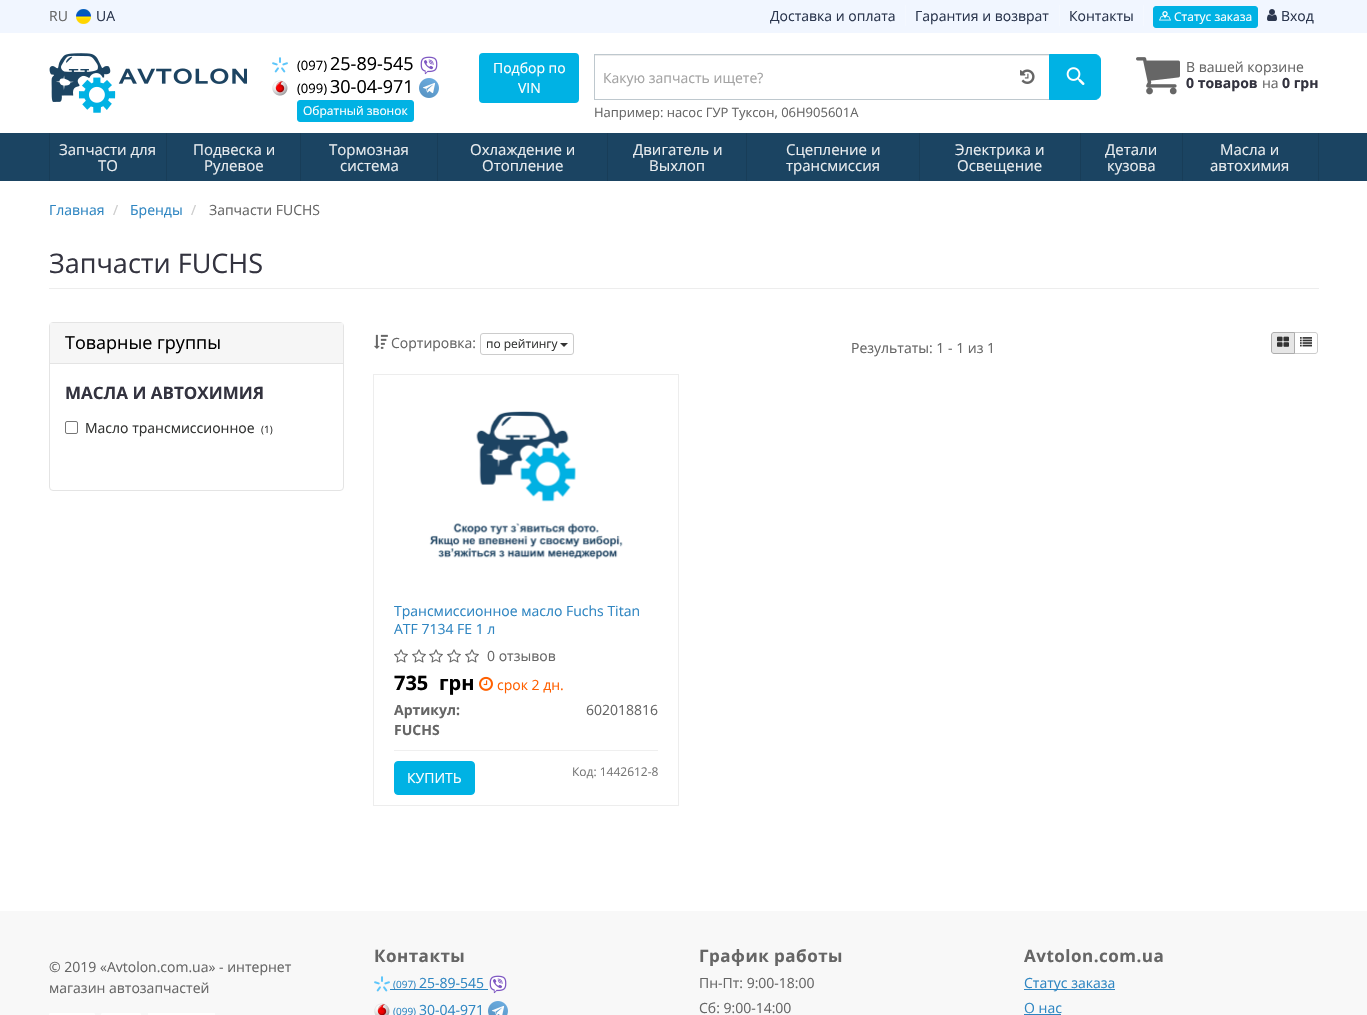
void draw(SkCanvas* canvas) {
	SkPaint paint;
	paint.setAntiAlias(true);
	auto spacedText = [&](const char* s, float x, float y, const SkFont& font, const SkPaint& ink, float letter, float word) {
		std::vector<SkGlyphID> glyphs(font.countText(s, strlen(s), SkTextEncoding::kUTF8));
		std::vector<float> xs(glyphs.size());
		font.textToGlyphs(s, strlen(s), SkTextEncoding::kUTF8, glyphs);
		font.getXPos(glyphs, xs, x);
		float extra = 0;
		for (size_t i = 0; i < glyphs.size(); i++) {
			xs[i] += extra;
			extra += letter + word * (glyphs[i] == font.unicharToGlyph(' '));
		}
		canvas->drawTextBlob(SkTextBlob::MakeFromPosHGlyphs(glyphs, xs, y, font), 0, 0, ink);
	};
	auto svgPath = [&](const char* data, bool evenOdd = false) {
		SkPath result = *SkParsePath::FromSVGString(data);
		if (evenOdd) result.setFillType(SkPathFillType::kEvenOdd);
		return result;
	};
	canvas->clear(0xffffffff);
	paint.setColor(0xfff1f6ff);
	canvas->drawRect(SkRect::MakeXYWH(0, 0, 1367, 33), paint);
	SkFont f1(fontMgr->matchFamilyStyle("Open Sans", SkFontStyle::Normal()), 14);
	f1.setSubpixel(true);
	paint.setColor(0xff666666);
	canvas->drawString("RU", 49, 21, f1, paint);
	canvas->drawImageRect(SkImages::DeferredFromEncodedData(SkData::MakeFromFileName("img1.png")), SkRect::MakeXYWH(76, 9, 15, 15), SkSamplingOptions());
	paint.setColor(0xff2b364e);
	canvas->drawString("UA", 96, 21, f1, paint);
	paint.setColor(0xfff4f8ff);
	canvas->drawRect(SkRect::MakeXYWH(905, 5, 1, 21), paint);
	paint.setColor(0xff2b364e);
	canvas->drawString("Доставка и оплата", 770, 21, f1, paint);
	paint.setColor(0xfff4f8ff);
	canvas->drawRect(SkRect::MakeXYWH(1059, 5, 1, 21), paint);
	paint.setColor(0xff2b364e);
	canvas->drawString("Гарантия и возврат", 915, 21, f1, paint);
	paint.setColor(0xfff4f8ff);
	canvas->drawRect(SkRect::MakeXYWH(1143, 5, 1, 21), paint);
	paint.setColor(0xff2b364e);
	canvas->drawString("Контакты", 1069, 21, f1, paint);
	paint.setColor(0xff00b2e4);
	canvas->drawRoundRect(SkRect::MakeXYWH(1153.5, 6.5, 104, 21), 2.5, 2.5, paint);
	paint.setStroke(true);
	paint.setStrokeWidth(1);
	canvas->drawRoundRect(SkRect::MakeXYWH(1153.5, 6.5, 104, 21), 2.5, 2.5, paint);
	canvas->drawImageRect(SkImages::DeferredFromEncodedData(SkData::MakeFromFileName("img2.png")), SkRect::MakeXYWH(1159, 11, 12, 10), SkSamplingOptions());
	SkFont f2(fontMgr->matchFamilyStyle("Open Sans", SkFontStyle::Normal()), 12);
	f2.setSubpixel(true);
	paint.setStroke(false);
	paint.setColor(0xffffffff);
	canvas->drawString("Статус заказа", 1174, 21, f2, paint);
	canvas->drawImageRect(SkImages::DeferredFromEncodedData(SkData::MakeFromFileName("img3.png")), SkRect::MakeXYWH(1267, 9, 10, 12), SkSamplingOptions());
	paint.setColor(0xff2b364e);
	canvas->drawString("Вход", 1281, 21, f1, paint);
	canvas->drawImageRect(SkImages::DeferredFromEncodedData(SkData::MakeFromFileName("img4.png")), SkRect::MakeXYWH(49, 53, 198, 60), SkSamplingOptions());
	canvas->drawImageRect(SkImages::DeferredFromEncodedData(SkData::MakeFromFileName("img5.png")), SkRect::MakeXYWH(272, 57, 16, 16), SkSamplingOptions());
	SkFont f3(fontMgr->matchFamilyStyle("Open Sans", SkFontStyle::Normal()), 13);
	f3.setSubpixel(true);
	paint.setColor(0xff000000);
	canvas->drawString("(097)", 297, 70, f3, paint);
	SkFont f4(fontMgr->matchFamilyStyle("Open Sans", SkFontStyle::Normal()), 18);
	f4.setSubpixel(true);
	canvas->drawString("25-89-545", 330, 70, f4, paint);
	canvas->drawImageRect(SkImages::DeferredFromEncodedData(SkData::MakeFromFileName("img6.png")), SkRect::MakeXYWH(420, 56, 18, 19), SkSamplingOptions());
	canvas->drawImageRect(SkImages::DeferredFromEncodedData(SkData::MakeFromFileName("img7.png")), SkRect::MakeXYWH(272, 80, 16, 16), SkSamplingOptions());
	canvas->drawString("(099)", 297, 93, f3, paint);
	canvas->drawString("30-04-971", 330, 93, f4, paint);
	canvas->drawImageRect(SkImages::DeferredFromEncodedData(SkData::MakeFromFileName("img8.png")), SkRect::MakeXYWH(419, 78, 20, 20), SkSamplingOptions());
	paint.setColor(0xff00b2e4);
	canvas->drawRoundRect(SkRect::MakeXYWH(297.5, 100.5, 116, 21), 2.5, 2.5, paint);
	paint.setStroke(true);
	canvas->drawRoundRect(SkRect::MakeXYWH(297.5, 100.5, 116, 21), 2.5, 2.5, paint);
	paint.setStroke(false);
	paint.setColor(0xffffffff);
	canvas->drawString("Обратный звонок", 303, 115, f2, paint);
	paint.setColor(0xff00b2e4);
	canvas->drawRoundRect(SkRect::MakeXYWH(480, 54, 98, 48), 3, 3, paint);
	paint.setStroke(true);
	paint.setStrokeWidth(2);
	canvas->drawRoundRect(SkRect::MakeXYWH(480, 54, 98, 48), 3, 3, paint);
	paint.setStroke(false);
	paint.setColor(0xffffffff);
	canvas->drawString("Подбор по", 493, 73, f1, paint);
	canvas->drawString("VIN", 518, 93, f1, paint);
	paint.setColor(0xffececec);
	canvas->drawRect(SkRect::MakeXYWH(595, 55, 454, 1), paint);
	paint.setStroke(true);
	paint.setStrokeWidth(1);
	paint.setColor(0xffbec8ce);
	canvas->drawRect(SkRect::MakeXYWH(594.5, 54.5, 455, 45), paint);
	paint.setStroke(false);
	paint.setColor(0xffa3a3a3);
	canvas->drawString("Какую запчасть ищете?", 603, 83, f1, paint);
	canvas->drawImageRect(SkImages::DeferredFromEncodedData(SkData::MakeFromFileName("img9.png")), SkRect::MakeXYWH(1020, 69, 15, 15), SkSamplingOptions());
	paint.setColor(0xff00b2e4);
	canvas->drawPath(svgPath("M1049.5 54.5H1095C1098 54.5 1100.5 57 1100.5 60V94C1100.5 97 1098 99.5 1095 99.5H1049.5Z"), paint);
	paint.setStroke(true);
	canvas->drawPath(svgPath("M1049.5 54.5H1095C1098 54.5 1100.5 57 1100.5 60V94C1100.5 97 1098 99.5 1095 99.5H1049.5Z"), paint);
	canvas->drawImageRect(SkImages::DeferredFromEncodedData(SkData::MakeFromFileName("img10.png")), SkRect::MakeXYWH(1066, 67, 19, 18), SkSamplingOptions());
	paint.setStroke(false);
	paint.setColor(0xff666666);
	canvas->drawString("Например: насос ГУР Туксон, 06H905601A", 594, 117, f3, paint);
	canvas->drawImageRect(SkImages::DeferredFromEncodedData(SkData::MakeFromFileName("img11.png")), SkRect::MakeXYWH(1136, 57, 44, 38), SkSamplingOptions());
	canvas->drawString("В вашей корзине", 1186, 72, f1, paint);
	SkFont f5(fontMgr->matchFamilyStyle("Open Sans", SkFontStyle::Bold()), 14);
	f5.setSubpixel(true);
	paint.setColor(0xff33333f);
	canvas->drawString("0 товаров", 1186, 88, f5, paint);
	paint.setColor(0xff666666);
	canvas->drawString("на", 1262, 88, f1, paint);
	paint.setColor(0xff33333f);
	canvas->drawString("0 грн", 1282, 88, f5, paint);
	paint.setColor(0xff1b4462);
	canvas->drawRect(SkRect::MakeXYWH(0, 133, 1367, 48), paint);
	paint.setColor(0xff183d58);
	canvas->drawRect(SkRect::MakeXYWH(166, 133, 1, 48), paint);
	canvas->drawRect(SkRect::MakeXYWH(49, 133, 1, 48), paint);
	SkFont f6(fontMgr->matchFamilyStyle("Open Sans", SkFontStyle::Normal()), 15);
	f6.setSubpixel(true);
	paint.setColor(0xffe8ecef);
	canvas->drawString("Запчасти для", 59, 155, f6, paint);
	canvas->drawString("ТО", 98, 171, f6, paint);
	paint.setColor(0xff183d58);
	canvas->drawRect(SkRect::MakeXYWH(300, 133, 1, 48), paint);
	paint.setColor(0xffe8ecef);
	canvas->drawString("Подвеска и", 193, 155, f6, paint);
	canvas->drawString("Рулевое", 204, 171, f6, paint);
	paint.setColor(0xff183d58);
	canvas->drawRect(SkRect::MakeXYWH(437, 133, 1, 48), paint);
	paint.setColor(0xffe8ecef);
	canvas->drawString("Тормозная", 329, 155, f6, paint);
	canvas->drawString("система", 340, 171, f6, paint);
	paint.setColor(0xff183d58);
	canvas->drawRect(SkRect::MakeXYWH(607, 133, 1, 48), paint);
	paint.setColor(0xffe8ecef);
	canvas->drawString("Охлаждение и", 470, 155, f6, paint);
	canvas->drawString("Отопление", 482, 171, f6, paint);
	paint.setColor(0xff183d58);
	canvas->drawRect(SkRect::MakeXYWH(746, 133, 1, 48), paint);
	paint.setColor(0xffe8ecef);
	canvas->drawString("Двигатель и", 633, 155, f6, paint);
	canvas->drawString("Выхлоп", 649, 171, f6, paint);
	paint.setColor(0xff183d58);
	canvas->drawRect(SkRect::MakeXYWH(919, 133, 1, 48), paint);
	paint.setColor(0xffe8ecef);
	canvas->drawString("Сцепление и", 786, 155, f6, paint);
	canvas->drawString("трансмиссия", 786, 171, f6, paint);
	paint.setColor(0xff183d58);
	canvas->drawRect(SkRect::MakeXYWH(1080, 133, 1, 48), paint);
	paint.setColor(0xffe8ecef);
	canvas->drawString("Электрика и", 955, 155, f6, paint);
	canvas->drawString("Освещение", 957, 171, f6, paint);
	paint.setColor(0xff183d58);
	canvas->drawRect(SkRect::MakeXYWH(1182, 133, 1, 48), paint);
	paint.setColor(0xffe8ecef);
	canvas->drawString("Детали", 1105, 155, f6, paint);
	canvas->drawString("кузова", 1107, 171, f6, paint);
	paint.setColor(0xff183d58);
	canvas->drawRect(SkRect::MakeXYWH(1318, 133, 1, 48), paint);
	paint.setColor(0xffe8ecef);
	canvas->drawString("Масла и", 1220, 155, f6, paint);
	canvas->drawString("автохимия", 1210, 171, f6, paint);
	paint.setColor(0xff2f86c2);
	canvas->drawString("Главная", 49, 215, f1, paint);
	paint.setColor(0xffcccccc);
	canvas->drawString("/", 113, 215, f1, paint);
	paint.setColor(0xff2f86c2);
	canvas->drawString("Бренды", 130, 215, f1, paint);
	paint.setColor(0xffcccccc);
	canvas->drawString("/", 191, 215, f1, paint);
	paint.setColor(0xff666666);
	canvas->drawString("Запчасти FUCHS", 209, 215, f1, paint);
	paint.setColor(0xffededed);
	canvas->drawRect(SkRect::MakeXYWH(49, 288, 1270, 1), paint);
	SkFont f7(fontMgr->matchFamilyStyle("Open Sans", SkFontStyle::Normal()), 27);
	f7.setSubpixel(true);
	paint.setColor(0xff33333f);
	canvas->drawString("Запчасти FUCHS", 49, 273, f7, paint);
	paint.setStroke(true);
	paint.setColor(0xffe4e4e4);
	canvas->drawRoundRect(SkRect::MakeXYWH(49.5, 322.5, 294, 168), 3.5, 3.5, paint);
	paint.setStroke(false);
	paint.setColor(0xfff6f6f6);
	canvas->drawRect(SkRect::MakeXYWH(50, 323, 293, 40), paint);
	paint.setColor(0xffe4e4e4);
	canvas->drawRect(SkRect::MakeXYWH(50, 363, 293, 1), paint);
	paint.setColor(0xff000000);
	canvas->drawString("Товарные группы", 65, 349, f4, paint);
	SkFont f8(fontMgr->matchFamilyStyle("Open Sans", SkFontStyle::Bold()), 17);
	f8.setSubpixel(true);
	paint.setColor(0xff33333f);
	canvas->drawString("МАСЛА И АВТОХИМИЯ", 65, 399, f8, paint);
	paint.setStroke(true);
	paint.setColor(0xff767676);
	canvas->drawRoundRect(SkRect::MakeXYWH(65.5, 421.5, 12, 12), 1.5, 1.5, paint);
	paint.setStroke(false);
	paint.setColor(0xff323332);
	canvas->drawString("Масло трансмиссионное", 85, 433, f1, paint);
	SkFont f9(fontMgr->matchFamilyStyle("Open Sans", SkFontStyle::Normal()), 10);
	f9.setSubpixel(true);
	canvas->drawString("(1)", 261, 433, f9, paint);
	canvas->drawImageRect(SkImages::DeferredFromEncodedData(SkData::MakeFromFileName("img12.png")), SkRect::MakeXYWH(374, 334, 14, 15), SkSamplingOptions());
	paint.setColor(0xff666666);
	canvas->drawString("Сортировка:", 391, 348, f1, paint);
	paint.setStroke(true);
	paint.setColor(0xffcccccc);
	canvas->drawRoundRect(SkRect::MakeXYWH(480.5, 333.5, 93, 21), 2.5, 2.5, paint);
	paint.setStroke(false);
	paint.setColor(0xff323332);
	canvas->drawString("по рейтингу", 486, 348, f2, paint);
	paint.setColor(0xff333333);
	canvas->drawPath(svgPath("M560 343H568L564 347Z"), paint);
	paint.setColor(0xff666666);
	canvas->drawString("Результаты: 1 - 1 из 1", 851, 353, f1, paint);
	paint.setStroke(true);
	paint.setColor(0xffcccccc);
	canvas->drawPath(svgPath("M1294.5 332.5H1315C1316.5 332.5 1317.5 333.5 1317.5 335V351C1317.5 352.5 1316.5 353.5 1315 353.5H1294.5Z"), paint);
	paint.setStroke(false);
	paint.setColor(0xffe6e6e6);
	canvas->drawPath(svgPath("M1274 332.5H1294.5V353.5H1274C1272.5 353.5 1271.5 352.5 1271.5 351V335C1271.5 333.5 1272.5 332.5 1274 332.5Z"), paint);
	paint.setStroke(true);
	paint.setColor(0xffadadad);
	canvas->drawPath(svgPath("M1274 332.5H1294.5V353.5H1274C1272.5 353.5 1271.5 352.5 1271.5 351V335C1271.5 333.5 1272.5 332.5 1274 332.5Z"), paint);
	canvas->drawImageRect(SkImages::DeferredFromEncodedData(SkData::MakeFromFileName("img13.png")), SkRect::MakeXYWH(1277, 336, 12, 11), SkSamplingOptions());
	canvas->drawImageRect(SkImages::DeferredFromEncodedData(SkData::MakeFromFileName("img14.png")), SkRect::MakeXYWH(1300, 337, 12, 10), SkSamplingOptions());
	paint.setColor(0xffededed);
	canvas->drawRect(SkRect::MakeXYWH(373.5, 374.5, 305, 431), paint);
	canvas->drawImageRect(SkImages::DeferredFromEncodedData(SkData::MakeFromFileName("img15.png")), SkRect::MakeXYWH(429, 411, 194, 149), SkSamplingOptions());
	paint.setStroke(false);
	paint.setColor(0xff2f86c2);
	canvas->drawString("Трансмиссионное масло Fuchs Titan", 394, 616, f1, paint);
	canvas->drawString("ATF 7134 FE 1 л", 394, 634, f1, paint);
	canvas->drawImageRect(SkImages::DeferredFromEncodedData(SkData::MakeFromFileName("img16.png")), SkRect::MakeXYWH(394, 649, 14, 14), SkSamplingOptions());
	canvas->drawImageRect(SkImages::DeferredFromEncodedData(SkData::MakeFromFileName("img16.png")), SkRect::MakeXYWH(412, 649, 14, 14), SkSamplingOptions());
	canvas->drawImageRect(SkImages::DeferredFromEncodedData(SkData::MakeFromFileName("img16.png")), SkRect::MakeXYWH(429, 649, 14, 14), SkSamplingOptions());
	canvas->drawImageRect(SkImages::DeferredFromEncodedData(SkData::MakeFromFileName("img16.png")), SkRect::MakeXYWH(447, 649, 14, 14), SkSamplingOptions());
	canvas->drawImageRect(SkImages::DeferredFromEncodedData(SkData::MakeFromFileName("img16.png")), SkRect::MakeXYWH(465, 649, 14, 14), SkSamplingOptions());
	paint.setColor(0xff666666);
	canvas->drawString("0 отзывов", 487, 661, f1, paint);
	SkFont f10(fontMgr->matchFamilyStyle("Open Sans", SkFontStyle::Bold()), 20);
	f10.setSubpixel(true);
	paint.setColor(0xff000000);
	canvas->drawString("735", 394, 690, f10, paint);
	canvas->drawString("грн", 439, 690, f10, paint);
	canvas->drawImageRect(SkImages::DeferredFromEncodedData(SkData::MakeFromFileName("img17.png")), SkRect::MakeXYWH(479, 676, 14, 15), SkSamplingOptions());
	paint.setColor(0xffff6000);
	canvas->drawString("срок 2 дн.", 497, 690, f1, paint);
	paint.setColor(0xff666666);
	canvas->drawString("Артикул:", 394, 715, f5, paint);
	canvas->drawString("602018816", 586, 715, f1, paint);
	canvas->drawString("FUCHS", 394, 735, f5, paint);
	paint.setColor(0xffefefef);
	canvas->drawRect(SkRect::MakeXYWH(394, 750, 264, 1), paint);
	paint.setColor(0xff00b2e4);
	canvas->drawRoundRect(SkRect::MakeXYWH(394.5, 761.5, 80, 33), 3.5, 3.5, paint);
	paint.setStroke(true);
	canvas->drawRoundRect(SkRect::MakeXYWH(394.5, 761.5, 80, 33), 3.5, 3.5, paint);
	paint.setStroke(false);
	paint.setColor(0xffffffff);
	canvas->drawString("КУПИТЬ", 407, 783, f1, paint);
	paint.setColor(0xff777777);
	canvas->drawString("Код: 1442612-8", 572, 776, f2, paint);
	paint.setColor(0xfff8f8f8);
	canvas->drawRect(SkRect::MakeXYWH(0, 911, 1367, 104), paint);
	paint.setColor(0xff666666);
	canvas->drawString("© 2019 «Avtolon.com.ua» - интернет", 49, 972, f1, paint);
	canvas->drawString("магазин автозапчастей", 49, 993, f1, paint);
	canvas->drawImageRect(SkImages::DeferredFromEncodedData(SkData::MakeFromFileName("img18.png")), SkRect::MakeXYWH(49, 1013, 166, 2), SkSamplingOptions());
	spacedText("Контакты", 374, 962, f8, paint, 0.5, 0);
	canvas->drawImageRect(SkImages::DeferredFromEncodedData(SkData::MakeFromFileName("img19.png")), SkRect::MakeXYWH(374, 976, 16, 16), SkSamplingOptions());
	paint.setColor(0xff2f86c2);
	canvas->drawRect(SkRect::MakeXYWH(390, 989, 98, 1), paint);
	canvas->drawString("(097)", 393, 988, f9, paint);
	canvas->drawString("25-89-545", 419, 988, f1, paint);
	canvas->drawImageRect(SkImages::DeferredFromEncodedData(SkData::MakeFromFileName("img20.png")), SkRect::MakeXYWH(489, 975, 18, 19), SkSamplingOptions());
	canvas->drawImageRect(SkImages::DeferredFromEncodedData(SkData::MakeFromFileName("img21.png")), SkRect::MakeXYWH(374, 1003, 16, 12), SkSamplingOptions());
	canvas->drawString("(099)", 393, 1015, f9, paint);
	canvas->drawString("30-04-971", 419, 1015, f1, paint);
	canvas->drawImageRect(SkImages::DeferredFromEncodedData(SkData::MakeFromFileName("img22.png")), SkRect::MakeXYWH(488, 1001, 20, 14), SkSamplingOptions());
	paint.setColor(0xff666666);
	spacedText("График работы", 699, 962, f8, paint, 0.5, 0);
	canvas->drawString("Пн-Пт: 9:00-18:00", 699, 988, f1, paint);
	canvas->drawString("Сб: 9:00-14:00", 699, 1013, f1, paint);
	spacedText("Avtolon.com.ua", 1024, 962, f8, paint, 0.5, 0);
	paint.setColor(0xff2f86c2);
	canvas->drawRect(SkRect::MakeXYWH(1024, 989, 91, 1), paint);
	canvas->drawString("Статус заказа", 1024, 988, f1, paint);
	canvas->drawString("О нас", 1024, 1013, f1, paint);
	canvas->drawRect(SkRect::MakeXYWH(1024, 1014, 37, 1), paint);
}
